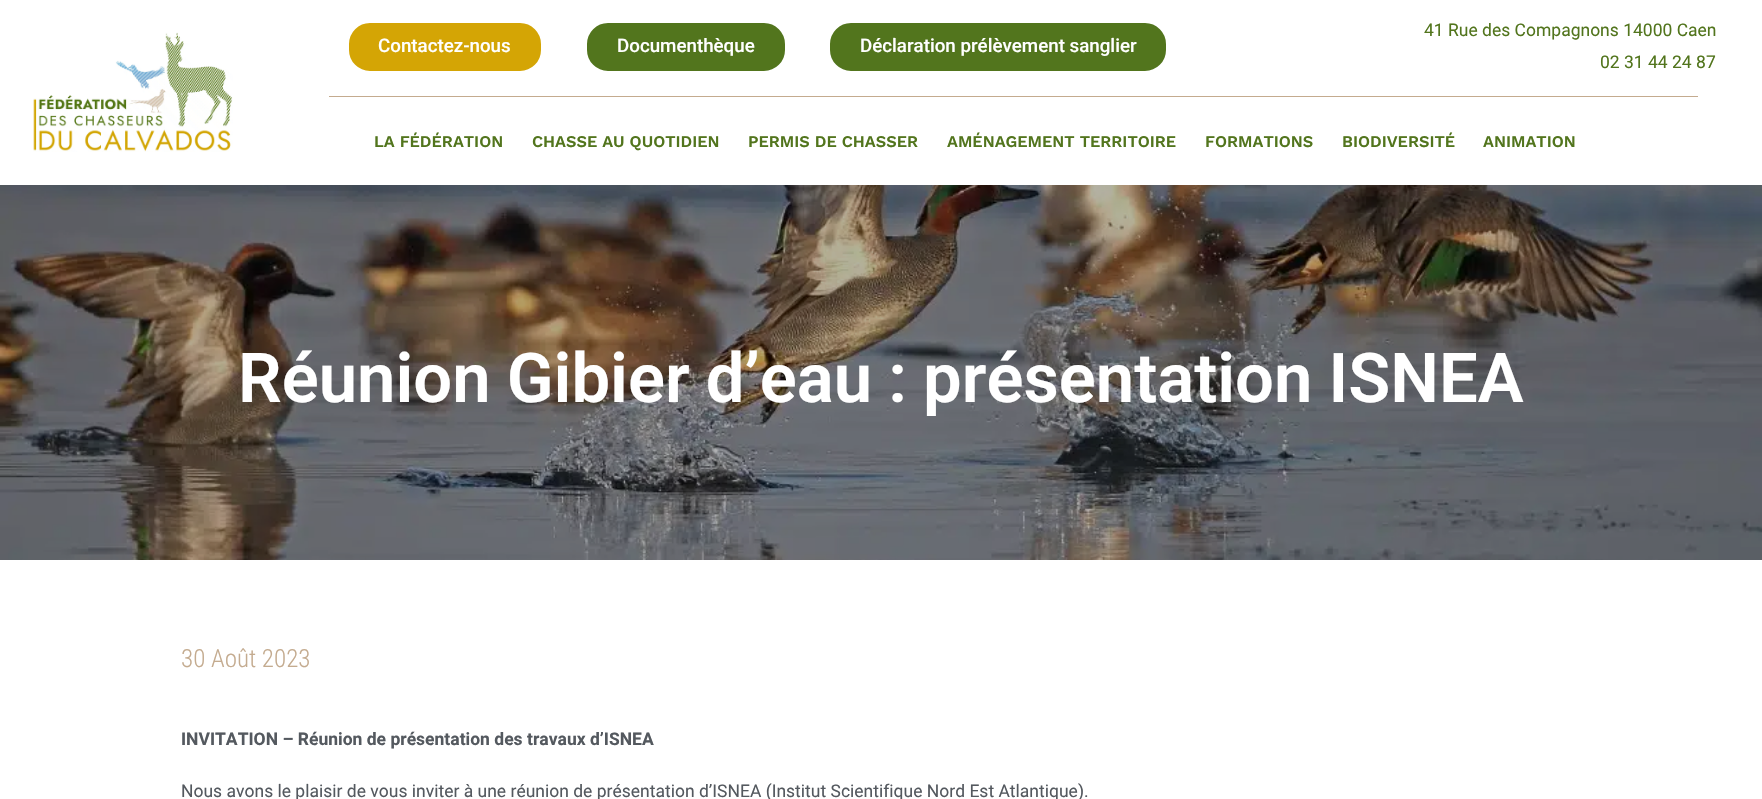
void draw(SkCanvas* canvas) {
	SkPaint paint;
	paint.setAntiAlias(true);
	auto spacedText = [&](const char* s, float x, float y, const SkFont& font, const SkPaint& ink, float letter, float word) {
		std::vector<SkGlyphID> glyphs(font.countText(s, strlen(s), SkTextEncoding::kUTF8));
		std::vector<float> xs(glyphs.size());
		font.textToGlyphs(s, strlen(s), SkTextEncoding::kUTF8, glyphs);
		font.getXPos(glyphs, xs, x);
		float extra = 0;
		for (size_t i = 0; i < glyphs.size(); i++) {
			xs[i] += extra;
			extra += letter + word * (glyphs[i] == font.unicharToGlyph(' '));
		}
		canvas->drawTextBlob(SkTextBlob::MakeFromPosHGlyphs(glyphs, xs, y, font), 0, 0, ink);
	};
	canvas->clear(0xffffffff);
	canvas->drawImageRect(SkImages::DeferredFromEncodedData(SkData::MakeFromFileName("img1.png")), SkRect::MakeXYWH(33, 32, 200, 120), SkSamplingOptions());
	paint.setColor(0xffd4a505);
	canvas->drawRoundRect(SkRect::MakeXYWH(347, 21, 196, 52), 23, 23, paint);
	paint.setStroke(true);
	paint.setStrokeWidth(4);
	paint.setColor(0xffffffff);
	canvas->drawRoundRect(SkRect::MakeXYWH(347, 21, 196, 52), 23, 23, paint);
	SkFont f1(fontMgr->matchFamilyStyle("Roboto", SkFontStyle(500, SkFontStyle::kNormal_Width, SkFontStyle::kUpright_Slant)), 18.75);
	f1.setSubpixel(true);
	paint.setStroke(false);
	canvas->drawString("Contactez-nous", 378, 52, f1, paint);
	paint.setColor(0xff52751d);
	canvas->drawRoundRect(SkRect::MakeXYWH(585, 21, 202, 52), 23, 23, paint);
	paint.setStroke(true);
	paint.setColor(0xffffffff);
	canvas->drawRoundRect(SkRect::MakeXYWH(585, 21, 202, 52), 23, 23, paint);
	paint.setStroke(false);
	canvas->drawString("Documenthèque", 617, 52, f1, paint);
	paint.setColor(0xff52751d);
	canvas->drawRoundRect(SkRect::MakeXYWH(828, 21, 340, 52), 23, 23, paint);
	paint.setStroke(true);
	paint.setColor(0xffffffff);
	canvas->drawRoundRect(SkRect::MakeXYWH(828, 21, 340, 52), 23, 23, paint);
	paint.setStroke(false);
	canvas->drawString("Déclaration prélèvement sanglier", 860, 52, f1, paint);
	SkFont f2(fontMgr->matchFamilyStyle("Roboto", SkFontStyle::Normal()), 17.5);
	f2.setSubpixel(true);
	paint.setColor(0xff52751d);
	canvas->drawString("41 Rue des Compagnons 14000 Caen", 1424, 36, f2, paint);
	canvas->drawString("02 31 44 24 87", 1600, 68, f2, paint);
	paint.setColor(0xffc4ab8f);
	canvas->drawRect(SkRect::MakeXYWH(329, 96, 1369, 1), paint);
	SkFont f3(fontMgr->matchFamilyStyle("Work Sans", SkFontStyle(600, SkFontStyle::kNormal_Width, SkFontStyle::kUpright_Slant)), 16.25);
	f3.setSubpixel(true);
	paint.setColor(0xff52751d);
	canvas->drawString("LA FÉDÉRATION", 374, 147, f3, paint);
	canvas->drawString("CHASSE AU QUOTIDIEN", 532, 147, f3, paint);
	canvas->drawString("PERMIS DE CHASSER", 748, 147, f3, paint);
	canvas->drawString("AMÉNAGEMENT TERRITOIRE", 947, 147, f3, paint);
	canvas->drawString("FORMATIONS", 1205, 147, f3, paint);
	canvas->drawString("BIODIVERSITÉ", 1342, 147, f3, paint);
	canvas->drawString("ANIMATION", 1483, 147, f3, paint);
	canvas->drawImageRect(SkImages::DeferredFromEncodedData(SkData::MakeFromFileName("img2.png")), SkRect::MakeXYWH(0, 185, 1762, 375), SkSamplingOptions());
	SkFont f4(fontMgr->matchFamilyStyle("Roboto", SkFontStyle(600, SkFontStyle::kNormal_Width, SkFontStyle::kUpright_Slant)), 68.75);
	f4.setSubpixel(true);
	paint.setColor(0xffffffff);
	spacedText("Réunion Gibier d’eau : présentation ISNEA", 238, 402, f4, paint, 0, -1);
	SkFont f5(fontMgr->matchFamilyStyle("Roboto Condensed", SkFontStyle(300, SkFontStyle::kNormal_Width, SkFontStyle::kUpright_Slant)), 25);
	f5.setSubpixel(true);
	paint.setColor(0xffc4ab8f);
	canvas->drawString("30 Août 2023", 181, 667, f5, paint);
	SkFont f6(fontMgr->matchFamilyStyle("Roboto", SkFontStyle::Bold()), 17.5);
	f6.setSubpixel(true);
	paint.setColor(0xff54595f);
	canvas->drawString("INVITATION – Réunion de présentation des travaux d’ISNEA", 181, 745, f6, paint);
	canvas->drawString("Nous avons le plaisir de vous inviter à une réunion de présentation d’ISNEA (Institut Scientifique Nord Est Atlantique).", 181, 797, f2, paint);
}
